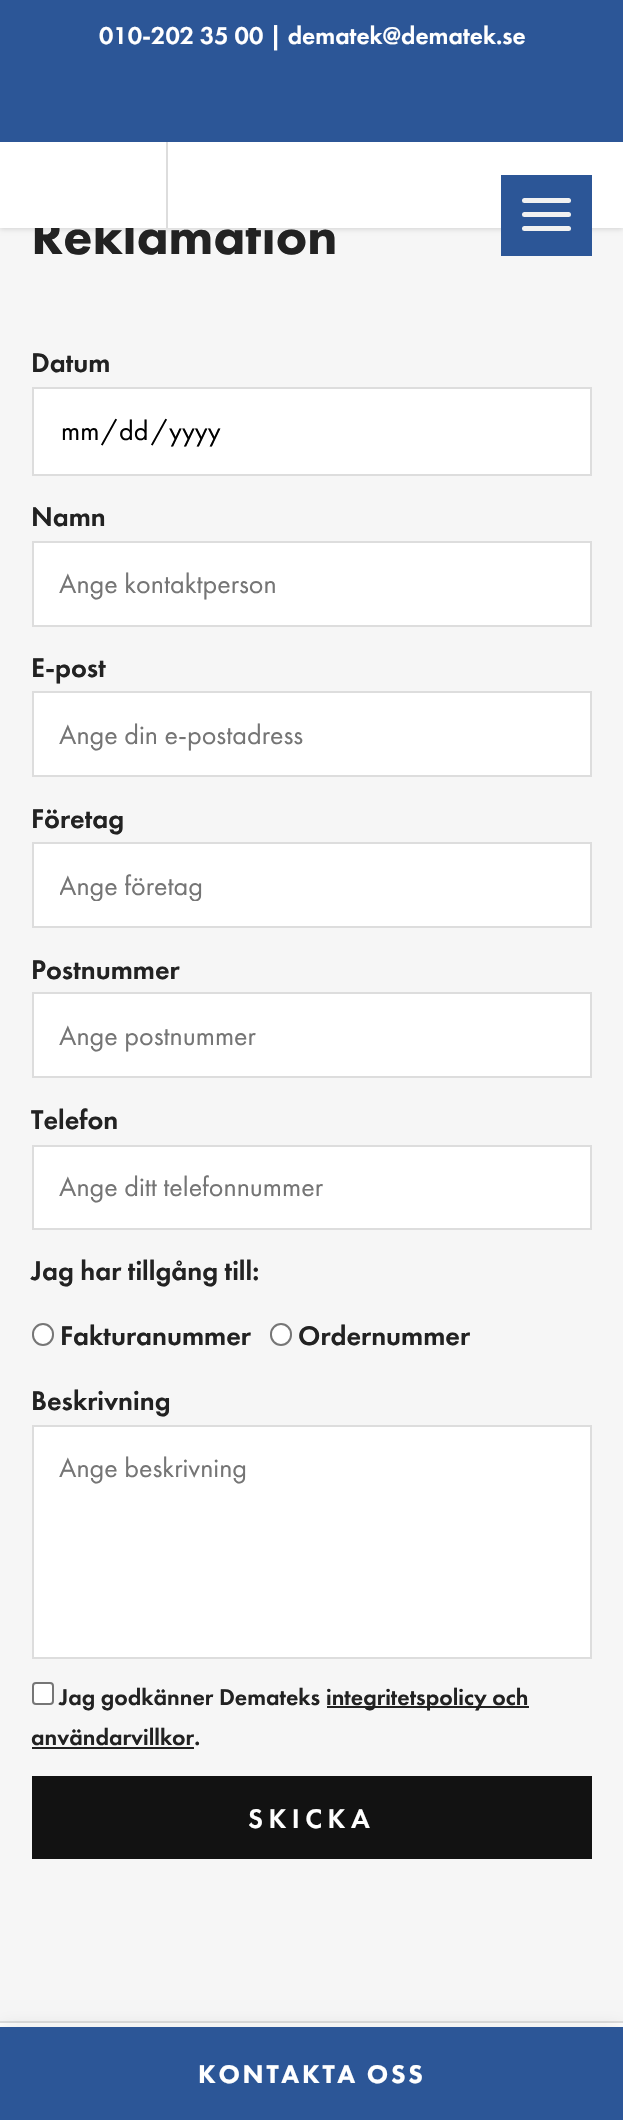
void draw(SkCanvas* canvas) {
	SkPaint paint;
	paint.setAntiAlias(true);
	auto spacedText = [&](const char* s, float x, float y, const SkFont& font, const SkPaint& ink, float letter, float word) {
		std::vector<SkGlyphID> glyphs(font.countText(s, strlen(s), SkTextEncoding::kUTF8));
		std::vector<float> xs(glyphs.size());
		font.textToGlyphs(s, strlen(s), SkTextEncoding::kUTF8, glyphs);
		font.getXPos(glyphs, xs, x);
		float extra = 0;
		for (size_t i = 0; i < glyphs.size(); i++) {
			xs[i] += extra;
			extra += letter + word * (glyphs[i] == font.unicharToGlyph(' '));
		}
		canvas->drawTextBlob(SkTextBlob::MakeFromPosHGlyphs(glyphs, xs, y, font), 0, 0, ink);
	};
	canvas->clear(0xfff6f6f6);
	paint.setColor(0x26000000);
	paint.setMaskFilter(SkMaskFilter::MakeBlur(kNormal_SkBlurStyle, 2.5));
	canvas->drawRect(SkRect::MakeXYWH(0, 2, 623, 227), paint);
	paint.setMaskFilter(nullptr);
	SkFont f1(fontMgr->matchFamilyStyle("Futura PT", SkFontStyle(900, SkFontStyle::kNormal_Width, SkFontStyle::kUpright_Slant)), 53.25);
	f1.setSubpixel(true);
	paint.setColor(0xff222222);
	canvas->drawString("Reklamation", 31, 254, f1, paint);
	paint.setColor(0xffffffff);
	canvas->drawRect(SkRect::MakeXYWH(0, 142, 623, 86), paint);
	paint.setColor(0xff2c5697);
	canvas->drawRect(SkRect::MakeXYWH(0, 0, 623, 142), paint);
	SkFont f2(fontMgr->matchFamilyStyle("Futura PT", SkFontStyle(500, SkFontStyle::kNormal_Width, SkFontStyle::kUpright_Slant)), 25.25);
	f2.setSubpixel(true);
	paint.setColor(0xffffffff);
	canvas->drawString("010-202 35 00 | dematek@dematek.se", 99, 44, f2, paint);
	paint.setColor(0xffdddddd);
	canvas->drawRect(SkRect::MakeXYWH(166, 142, 2, 86), paint);
	paint.setColor(0xff2c5697);
	canvas->drawRect(SkRect::MakeXYWH(501, 175, 91, 81), paint);
	paint.setColor(0xfff1f1f1);
	canvas->drawRoundRect(SkRect::MakeXYWH(522, 212, 49, 5), 2.5, 2.5, paint);
	canvas->drawRoundRect(SkRect::MakeXYWH(522, 198, 49, 5), 2.5, 2.5, paint);
	canvas->drawRoundRect(SkRect::MakeXYWH(522, 226, 49, 5), 2.5, 2.5, paint);
	SkFont f3(fontMgr->matchFamilyStyle("Futura PT", SkFontStyle(500, SkFontStyle::kNormal_Width, SkFontStyle::kUpright_Slant)), 28);
	f3.setSubpixel(true);
	paint.setColor(0xff222222);
	canvas->drawString("Datum", 31, 372, f3, paint);
	paint.setColor(0xffffffff);
	canvas->drawRect(SkRect::MakeXYWH(33, 388, 558, 87), paint);
	paint.setStroke(true);
	paint.setStrokeWidth(2);
	paint.setColor(0xffdddddd);
	canvas->drawRect(SkRect::MakeXYWH(33, 388, 558, 87), paint);
	SkFont f4(fontMgr->matchFamilyStyle("Futura PT", SkFontStyle::Normal()), 28);
	f4.setSubpixel(true);
	paint.setStroke(false);
	paint.setColor(0xff000000);
	canvas->drawString("mm", 61, 440, f4, paint);
	canvas->drawString("/", 101, 440, f4, paint);
	canvas->drawString("dd", 119, 440, f4, paint);
	canvas->drawString("/", 151, 440, f4, paint);
	canvas->drawString("yyyy", 169, 440, f4, paint);
	paint.setColor(0xff222222);
	canvas->drawString("Namn", 31, 526, f3, paint);
	paint.setColor(0xffffffff);
	canvas->drawRect(SkRect::MakeXYWH(33, 542, 558, 84), paint);
	paint.setStroke(true);
	paint.setColor(0xffdddddd);
	canvas->drawRect(SkRect::MakeXYWH(33, 542, 558, 84), paint);
	paint.setStroke(false);
	paint.setColor(0xff757575);
	canvas->drawString("Ange kontaktperson", 59, 593, f4, paint);
	paint.setColor(0xff222222);
	canvas->drawString("E-post", 31, 677, f3, paint);
	paint.setColor(0xffffffff);
	canvas->drawRect(SkRect::MakeXYWH(33, 692, 558, 84), paint);
	paint.setStroke(true);
	paint.setColor(0xffdddddd);
	canvas->drawRect(SkRect::MakeXYWH(33, 692, 558, 84), paint);
	paint.setStroke(false);
	paint.setColor(0xff757575);
	canvas->drawString("Ange din e-postadress", 59, 744, f4, paint);
	paint.setColor(0xff222222);
	canvas->drawString("Företag", 31, 828, f3, paint);
	paint.setColor(0xffffffff);
	canvas->drawRect(SkRect::MakeXYWH(33, 843, 558, 84), paint);
	paint.setStroke(true);
	paint.setColor(0xffdddddd);
	canvas->drawRect(SkRect::MakeXYWH(33, 843, 558, 84), paint);
	canvas->save();
	canvas->clipRect(SkRect::MakeXYWH(60, 868, 504, 33));
	paint.setStroke(false);
	paint.setColor(0xff757575);
	canvas->drawString("Ange företag", 59, 895, f4, paint);
	canvas->restore();
	paint.setColor(0xff222222);
	canvas->drawString("Postnummer", 31, 979, f3, paint);
	paint.setColor(0xffffffff);
	canvas->drawRect(SkRect::MakeXYWH(33, 993, 558, 84), paint);
	paint.setStroke(true);
	paint.setColor(0xffdddddd);
	canvas->drawRect(SkRect::MakeXYWH(33, 993, 558, 84), paint);
	paint.setStroke(false);
	paint.setColor(0xff757575);
	canvas->drawString("Ange postnummer", 59, 1045, f4, paint);
	paint.setColor(0xff222222);
	canvas->drawString("Telefon", 31, 1129, f3, paint);
	paint.setColor(0xffffffff);
	canvas->drawRect(SkRect::MakeXYWH(33, 1146, 558, 83), paint);
	paint.setStroke(true);
	paint.setColor(0xffdddddd);
	canvas->drawRect(SkRect::MakeXYWH(33, 1146, 558, 83), paint);
	paint.setStroke(false);
	paint.setColor(0xff757575);
	canvas->drawString("Ange ditt telefonnummer", 59, 1196, f4, paint);
	paint.setColor(0xff222222);
	canvas->drawString("Jag har tillgång till:", 31, 1280, f3, paint);
	paint.setColor(0xffffffff);
	canvas->drawRoundRect(SkRect::MakeXYWH(33, 1324, 20, 21), 10, 10, paint);
	paint.setStroke(true);
	paint.setColor(0xff767676);
	canvas->drawRoundRect(SkRect::MakeXYWH(33, 1324, 20, 21), 10, 10, paint);
	paint.setStroke(false);
	paint.setColor(0xff222222);
	canvas->drawString("Fakturanummer", 60, 1345, f3, paint);
	paint.setColor(0xffffffff);
	canvas->drawRoundRect(SkRect::MakeXYWH(271, 1324, 20, 21), 10, 10, paint);
	paint.setStroke(true);
	paint.setColor(0xff767676);
	canvas->drawRoundRect(SkRect::MakeXYWH(271, 1324, 20, 21), 10, 10, paint);
	paint.setStroke(false);
	paint.setColor(0xff222222);
	canvas->drawString("Ordernummer", 298, 1345, f3, paint);
	canvas->drawString("Beskrivning", 31, 1410, f3, paint);
	paint.setColor(0xffffffff);
	canvas->drawRect(SkRect::MakeXYWH(33, 1426, 558, 232), paint);
	paint.setStroke(true);
	paint.setColor(0xffdddddd);
	canvas->drawRect(SkRect::MakeXYWH(33, 1426, 558, 232), paint);
	paint.setStroke(false);
	paint.setColor(0xff757575);
	canvas->drawString("Ange beskrivning", 59, 1477, f4, paint);
	paint.setColor(0xffffffff);
	canvas->drawRoundRect(SkRect::MakeXYWH(33, 1683, 20, 21), 3, 3, paint);
	paint.setStroke(true);
	paint.setColor(0xff767676);
	canvas->drawRoundRect(SkRect::MakeXYWH(33, 1683, 20, 21), 3, 3, paint);
	SkFont f5(fontMgr->matchFamilyStyle("Futura PT", SkFontStyle(500, SkFontStyle::kNormal_Width, SkFontStyle::kUpright_Slant)), 23.75);
	f5.setSubpixel(true);
	paint.setStroke(false);
	paint.setColor(0xff222222);
	canvas->drawString("Jag godkänner Demateks", 59, 1705, f5, paint);
	canvas->drawRect(SkRect::MakeXYWH(327, 1706, 202, 2), paint);
	canvas->drawString("integritetspolicy och", 326, 1705, f5, paint);
	canvas->drawString("användarvillkor.", 31, 1745, f5, paint);
	canvas->drawRect(SkRect::MakeXYWH(32, 1747, 162, 2), paint);
	paint.setColor(0xff121212);
	canvas->drawRect(SkRect::MakeXYWH(32, 1776, 560, 83), paint);
	paint.setColor(0xffffffff);
	spacedText("SKICKA", 248, 1828, f3, paint, 5.5, 0);
	canvas->drawRect(SkRect::MakeXYWH(0, 2023, 623, 4), paint);
	paint.setColor(0xffdddddd);
	canvas->drawRect(SkRect::MakeXYWH(0, 2021, 623, 2), paint);
	paint.setColor(0x1a000000);
	paint.setMaskFilter(SkMaskFilter::MakeBlur(kNormal_SkBlurStyle, 9));
	canvas->drawRect(SkRect::MakeXYWH(0, 2027, 623, 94), paint);
	paint.setMaskFilter(nullptr);
	paint.setColor(0xff2c5697);
	canvas->drawRect(SkRect::MakeXYWH(0, 2027, 623, 93), paint);
	SkFont f6(fontMgr->matchFamilyStyle("Futura PT", SkFontStyle(900, SkFontStyle::kNormal_Width, SkFontStyle::kUpright_Slant)), 26.5);
	f6.setSubpixel(true);
	paint.setColor(0xffffffff);
	spacedText("KONTAKTA OSS", 198, 2083, f6, paint, 2.7, 0);
}
